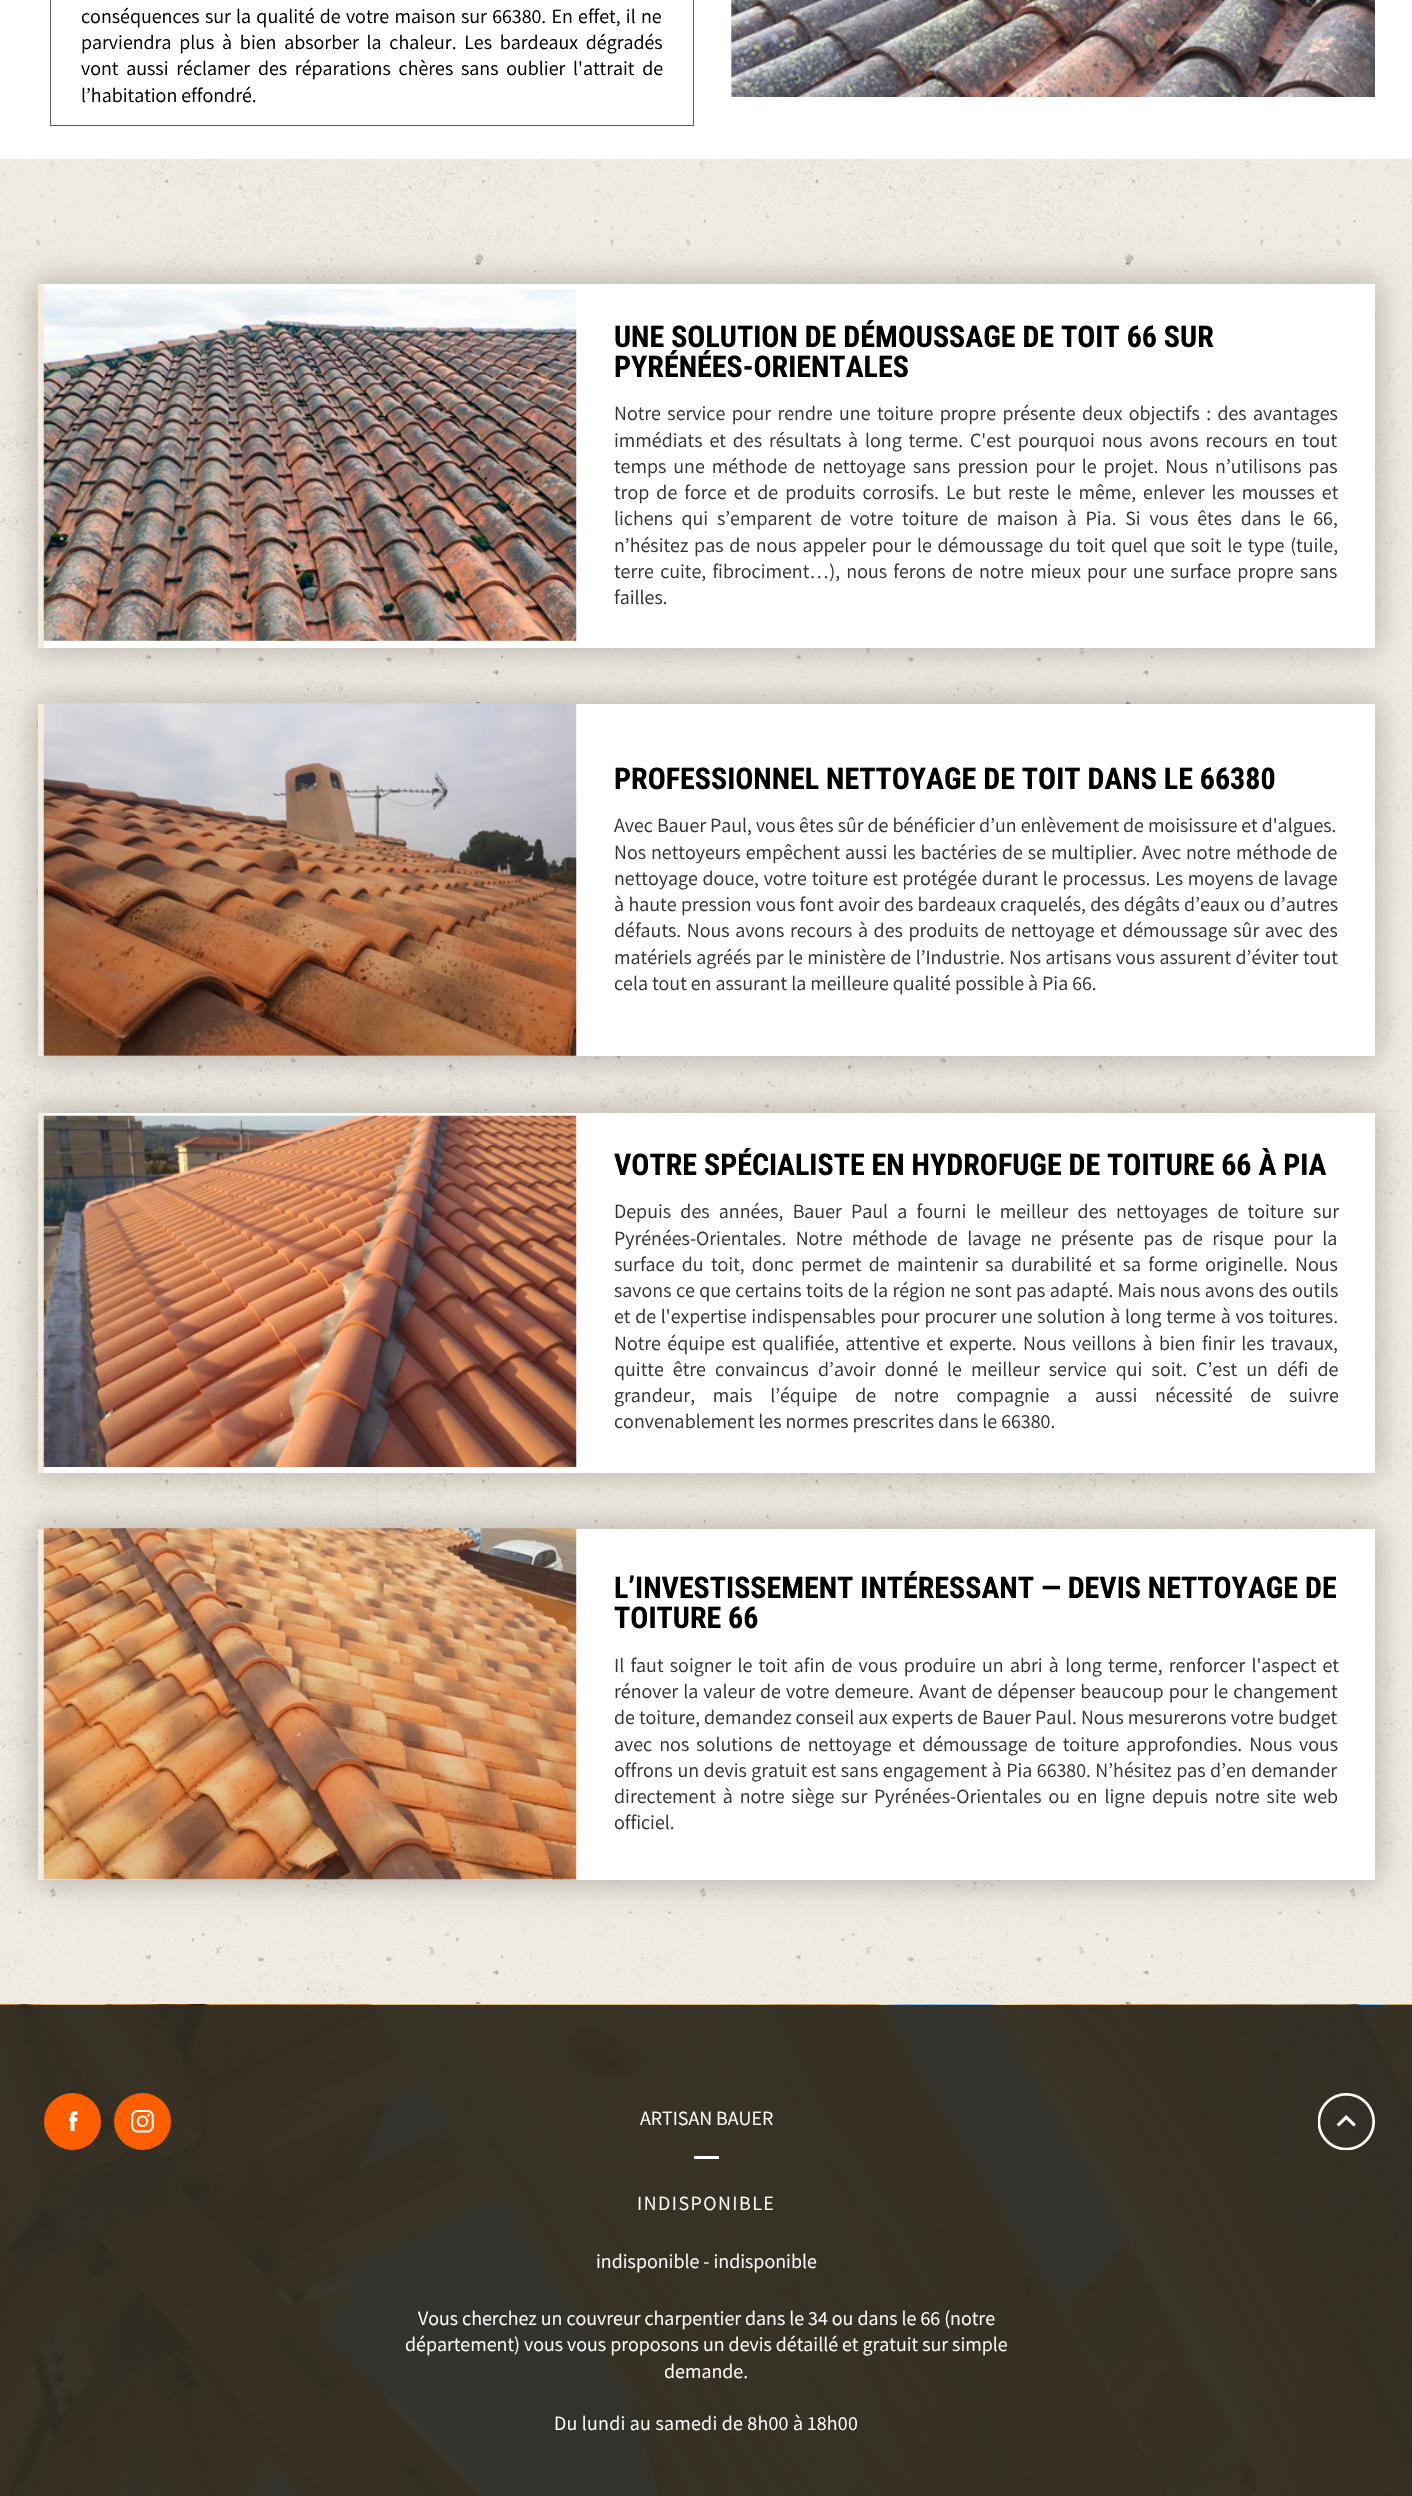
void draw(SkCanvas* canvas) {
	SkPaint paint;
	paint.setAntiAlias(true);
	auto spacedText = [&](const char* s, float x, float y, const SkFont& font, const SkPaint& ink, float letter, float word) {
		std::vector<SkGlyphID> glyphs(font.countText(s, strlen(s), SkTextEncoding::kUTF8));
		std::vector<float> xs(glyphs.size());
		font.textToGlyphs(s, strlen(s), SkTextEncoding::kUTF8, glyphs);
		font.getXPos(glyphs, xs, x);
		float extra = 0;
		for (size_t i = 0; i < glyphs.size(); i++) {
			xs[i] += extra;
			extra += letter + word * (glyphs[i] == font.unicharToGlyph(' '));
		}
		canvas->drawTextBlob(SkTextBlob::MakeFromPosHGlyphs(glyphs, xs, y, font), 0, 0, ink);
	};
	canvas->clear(0xffffffff);
	paint.setStroke(true);
	paint.setStrokeWidth(1);
	paint.setColor(0xff565555);
	canvas->drawRect(SkRect::MakeXYWH(50.5, -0.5, 643, 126), paint);
	SkFont f1(fontMgr->matchFamilyStyle("Assistant", SkFontStyle::Normal()), 20);
	f1.setSubpixel(true);
	paint.setStroke(false);
	paint.setColor(0xff000000);
	spacedText("conséquences sur la qualité de votre maison sur 66380. En effet, il ne", 81, 23, f1, paint, 0, 1.25);
	spacedText("parviendra plus à bien absorber la chaleur. Les bardeaux dégradés", 81, 49, f1, paint, 0, 3.75);
	spacedText("vont aussi réclamer des réparations chères sans oublier l'attrait de", 81, 75, f1, paint, 0, 3.75);
	canvas->drawString("l’habitation effondré.", 81, 102, f1, paint);
	canvas->drawImageRect(SkImages::DeferredFromEncodedData(SkData::MakeFromFileName("img1.png")), SkRect::MakeXYWH(731, 0, 644, 97), SkSamplingOptions());
	paint.setColor(0xfff1ece2);
	canvas->drawRect(SkRect::MakeXYWH(0, 159, 1412, 1845), paint);
	canvas->drawImageRect(SkImages::DeferredFromEncodedData(SkData::MakeFromFileName("img2.png")), SkRect::MakeXYWH(0, 158, 1412, 1846), SkSamplingOptions());
	paint.setColor(0x3d000000);
	paint.setMaskFilter(SkMaskFilter::MakeBlur(kNormal_SkBlurStyle, 15.5));
	canvas->drawRect(SkRect::MakeXYWH(34, 280, 1345, 371), paint);
	paint.setMaskFilter(nullptr);
	paint.setColor(0xffffffff);
	canvas->drawRect(SkRect::MakeXYWH(44, 284, 1331, 364), paint);
	paint.setColor(0xfff2ece1);
	canvas->drawRect(SkRect::MakeXYWH(38, 284, 6, 364), paint);
	canvas->drawImageRect(SkImages::DeferredFromEncodedData(SkData::MakeFromFileName("img3.png")), SkRect::MakeXYWH(43, 289, 534, 352), SkSamplingOptions());
	SkFont f2(fontMgr->matchFamilyStyle("Roboto Condensed", SkFontStyle::Bold()), 30);
	f2.setSubpixel(true);
	paint.setColor(0xff000000);
	canvas->drawString("UNE SOLUTION DE DÉMOUSSAGE DE TOIT 66 SUR", 614, 347, f2, paint);
	canvas->drawString("PYRÉNÉES-ORIENTALES", 614, 377, f2, paint);
	paint.setColor(0xff333333);
	spacedText("Notre service pour rendre une toiture propre présente deux objectifs : des avantages", 614, 420, f1, paint, 0, 2.4);
	spacedText("immédiats et des résultats à long terme. C'est pourquoi nous avons recours en tout", 614, 447, f1, paint, 0, 2.9);
	spacedText("temps une méthode de nettoyage sans pression pour le projet. Nous n’utilisons pas", 614, 473, f1, paint, 0, 3);
	spacedText("trop de force et de produits corrosifs. Le but reste le même, enlever les mousses et", 614, 499, f1, paint, 0, 3.1);
	spacedText("lichens qui s’emparent de votre toiture de maison à Pia. Si vous êtes dans le 66,", 614, 525, f1, paint, 0, 4.75);
	spacedText("n’hésitez pas de nous appeler pour le démoussage du toit quel que soit le type (tuile,", 614, 552, f1, paint, 0, 1.75);
	spacedText("terre cuite, fibrociment…), nous ferons de notre mieux pour une surface propre sans", 614, 578, f1, paint, 0, 2.25);
	canvas->drawString("failles.", 614, 604, f1, paint);
	paint.setColor(0x3d000000);
	paint.setMaskFilter(SkMaskFilter::MakeBlur(kNormal_SkBlurStyle, 15.5));
	canvas->drawRect(SkRect::MakeXYWH(34, 700, 1345, 360), paint);
	paint.setMaskFilter(nullptr);
	paint.setColor(0xffffffff);
	canvas->drawRect(SkRect::MakeXYWH(44, 704, 1331, 352), paint);
	paint.setColor(0xfff2ece1);
	canvas->drawRect(SkRect::MakeXYWH(38, 704, 6, 352), paint);
	canvas->drawImageRect(SkImages::DeferredFromEncodedData(SkData::MakeFromFileName("img4.png")), SkRect::MakeXYWH(43, 703, 534, 353), SkSamplingOptions());
	paint.setColor(0xff000000);
	canvas->drawString("PROFESSIONNEL NETTOYAGE DE TOIT DANS LE 66380", 614, 789, f2, paint);
	paint.setColor(0xff333333);
	canvas->drawString("Avec Bauer Paul, vous êtes sûr de bénéficier d’un enlèvement de moisissure et d'algues.", 614, 832, f1, paint);
	spacedText("Nos nettoyeurs empêchent aussi les bactéries de se multiplier. Avec notre méthode de", 614, 859, f1, paint, 0, 1);
	spacedText("nettoyage douce, votre toiture est protégée durant le processus. Les moyens de lavage", 614, 885, f1, paint, 0, 0.75);
	spacedText("à haute pression vous font avoir des bardeaux craquelés, des dégâts d’eaux ou d’autres", 614, 911, f1, paint, 0, 0.4);
	spacedText("défauts. Nous avons recours à des produits de nettoyage et démoussage sûr avec des", 614, 937, f1, paint, 0, 1.6);
	spacedText("matériels agréés par le ministère de l’Industrie. Nos artisans vous assurent d’éviter tout", 614, 964, f1, paint, 0, 0.5);
	canvas->drawString("cela tout en assurant la meilleure qualité possible à Pia 66.", 614, 990, f1, paint);
	paint.setColor(0x3d000000);
	paint.setMaskFilter(SkMaskFilter::MakeBlur(kNormal_SkBlurStyle, 15.5));
	canvas->drawRect(SkRect::MakeXYWH(34, 1109, 1345, 367), paint);
	paint.setMaskFilter(nullptr);
	paint.setColor(0xffffffff);
	canvas->drawRect(SkRect::MakeXYWH(44, 1113, 1331, 360), paint);
	paint.setColor(0xfff2ece1);
	canvas->drawRect(SkRect::MakeXYWH(38, 1113, 6, 360), paint);
	canvas->drawImageRect(SkImages::DeferredFromEncodedData(SkData::MakeFromFileName("img5.png")), SkRect::MakeXYWH(43, 1115, 534, 352), SkSamplingOptions());
	paint.setColor(0xff000000);
	canvas->drawString("VOTRE SPÉCIALISTE EN HYDROFUGE DE TOITURE 66 À PIA", 614, 1175, f2, paint);
	paint.setColor(0xff333333);
	spacedText("Depuis des années, Bauer Paul a fourni le meilleur des nettoyages de toiture sur", 614, 1218, f1, paint, 0, 5.25);
	spacedText("Pyrénées-Orientales. Notre méthode de lavage ne présente pas de risque pour la", 614, 1245, f1, paint, 0, 5.4);
	spacedText("surface du toit, donc permet de maintenir sa durabilité et sa forme originelle. Nous", 614, 1271, f1, paint, 0, 3.25);
	spacedText("savons ce que certains toits de la région ne sont pas adapté. Mais nous avons des outils", 614, 1297, f1, paint, 0, 0.4);
	spacedText("et de l'expertise indispensables pour procurer une solution à long terme à vos toitures.", 614, 1323, f1, paint, 0, 0.75);
	spacedText("Notre équipe est qualifiée, attentive et experte. Nous veillons à bien finir les travaux,", 614, 1350, f1, paint, 0, 2.4);
	spacedText("quitte être convaincus d’avoir donné le meilleur service qui soit. C’est un défi de", 614, 1376, f1, paint, 0, 5.1);
	spacedText("grandeur, mais l’équipe de notre compagnie a aussi nécessité de suivre", 614, 1402, f1, paint, 0, 13.75);
	canvas->drawString("convenablement les normes prescrites dans le 66380.", 614, 1428, f1, paint);
	paint.setColor(0x3d000000);
	paint.setMaskFilter(SkMaskFilter::MakeBlur(kNormal_SkBlurStyle, 15.5));
	canvas->drawRect(SkRect::MakeXYWH(34, 1525, 1345, 359), paint);
	paint.setMaskFilter(nullptr);
	paint.setColor(0xffffffff);
	canvas->drawRect(SkRect::MakeXYWH(44, 1529, 1331, 351), paint);
	paint.setColor(0xfff2ece1);
	canvas->drawRect(SkRect::MakeXYWH(38, 1529, 6, 351), paint);
	canvas->drawImageRect(SkImages::DeferredFromEncodedData(SkData::MakeFromFileName("img6.png")), SkRect::MakeXYWH(43, 1528, 534, 352), SkSamplingOptions());
	paint.setColor(0xff000000);
	canvas->drawString("L’INVESTISSEMENT INTÉRESSANT — DEVIS NETTOYAGE DE", 614, 1598, f2, paint);
	canvas->drawString("TOITURE 66", 614, 1628, f2, paint);
	paint.setColor(0xff333333);
	spacedText("Il faut soigner le toit afin de vous produire un abri à long terme, renforcer l'aspect et", 614, 1672, f1, paint, 0, 2.25);
	spacedText("rénover la valeur de votre demeure. Avant de dépenser beaucoup pour le changement", 614, 1698, f1, paint, 0, 1.1);
	canvas->drawString("de toiture, demandez conseil aux experts de Bauer Paul. Nous mesurerons votre budget", 614, 1724, f1, paint);
	spacedText("avec nos solutions de nettoyage et démoussage de toiture approfondies. Nous vous", 614, 1751, f1, paint, 0, 3.1);
	spacedText("offrons un devis gratuit est sans engagement à Pia 66380. N’hésitez pas d’en demander", 614, 1777, f1, paint, 0, 0.5);
	spacedText("directement à notre siège sur Pyrénées-Orientales ou en ligne depuis notre site web", 614, 1803, f1, paint, 0, 2.9);
	canvas->drawString("officiel.", 614, 1829, f1, paint);
	canvas->drawImageRect(SkImages::DeferredFromEncodedData(SkData::MakeFromFileName("img7.png")), SkRect::MakeXYWH(0, 2004, 1412, 492), SkSamplingOptions());
	paint.setColor(0xffff5e00);
	canvas->drawCircle(72.5, 2121.5, 28.5, paint);
	canvas->drawImageRect(SkImages::DeferredFromEncodedData(SkData::MakeFromFileName("img8.png")), SkRect::MakeXYWH(69, 2111, 9, 20), SkSamplingOptions());
	canvas->drawCircle(142.5, 2121.5, 28.5, paint);
	canvas->drawImageRect(SkImages::DeferredFromEncodedData(SkData::MakeFromFileName("img9.png")), SkRect::MakeXYWH(131, 2110, 23, 23), SkSamplingOptions());
	paint.setColor(0xffffffff);
	canvas->drawString("ARTISAN BAUER", 640, 2125, f1, paint);
	canvas->drawRect(SkRect::MakeXYWH(694, 2156, 25, 3), paint);
	spacedText("INDISPONIBLE", 637, 2210, f1, paint, 1.5, 0);
	canvas->drawString("indisponible - indisponible", 596, 2268, f1, paint);
	canvas->drawString("Vous cherchez un couvreur charpentier dans le 34 ou dans le 66 (notre", 418, 2325, f1, paint);
	canvas->drawString("département) vous vous proposons un devis détaillé et gratuit sur simple", 405, 2351, f1, paint);
	canvas->drawString("demande.", 664, 2378, f1, paint);
	spacedText("Du lundi au samedi de 8h00 à 18h00", 554, 2430, f1, paint, 0.25, 0);
	canvas->drawImageRect(SkImages::DeferredFromEncodedData(SkData::MakeFromFileName("img10.png")), SkRect::MakeXYWH(1318, 2093, 57, 57), SkSamplingOptions());
}
